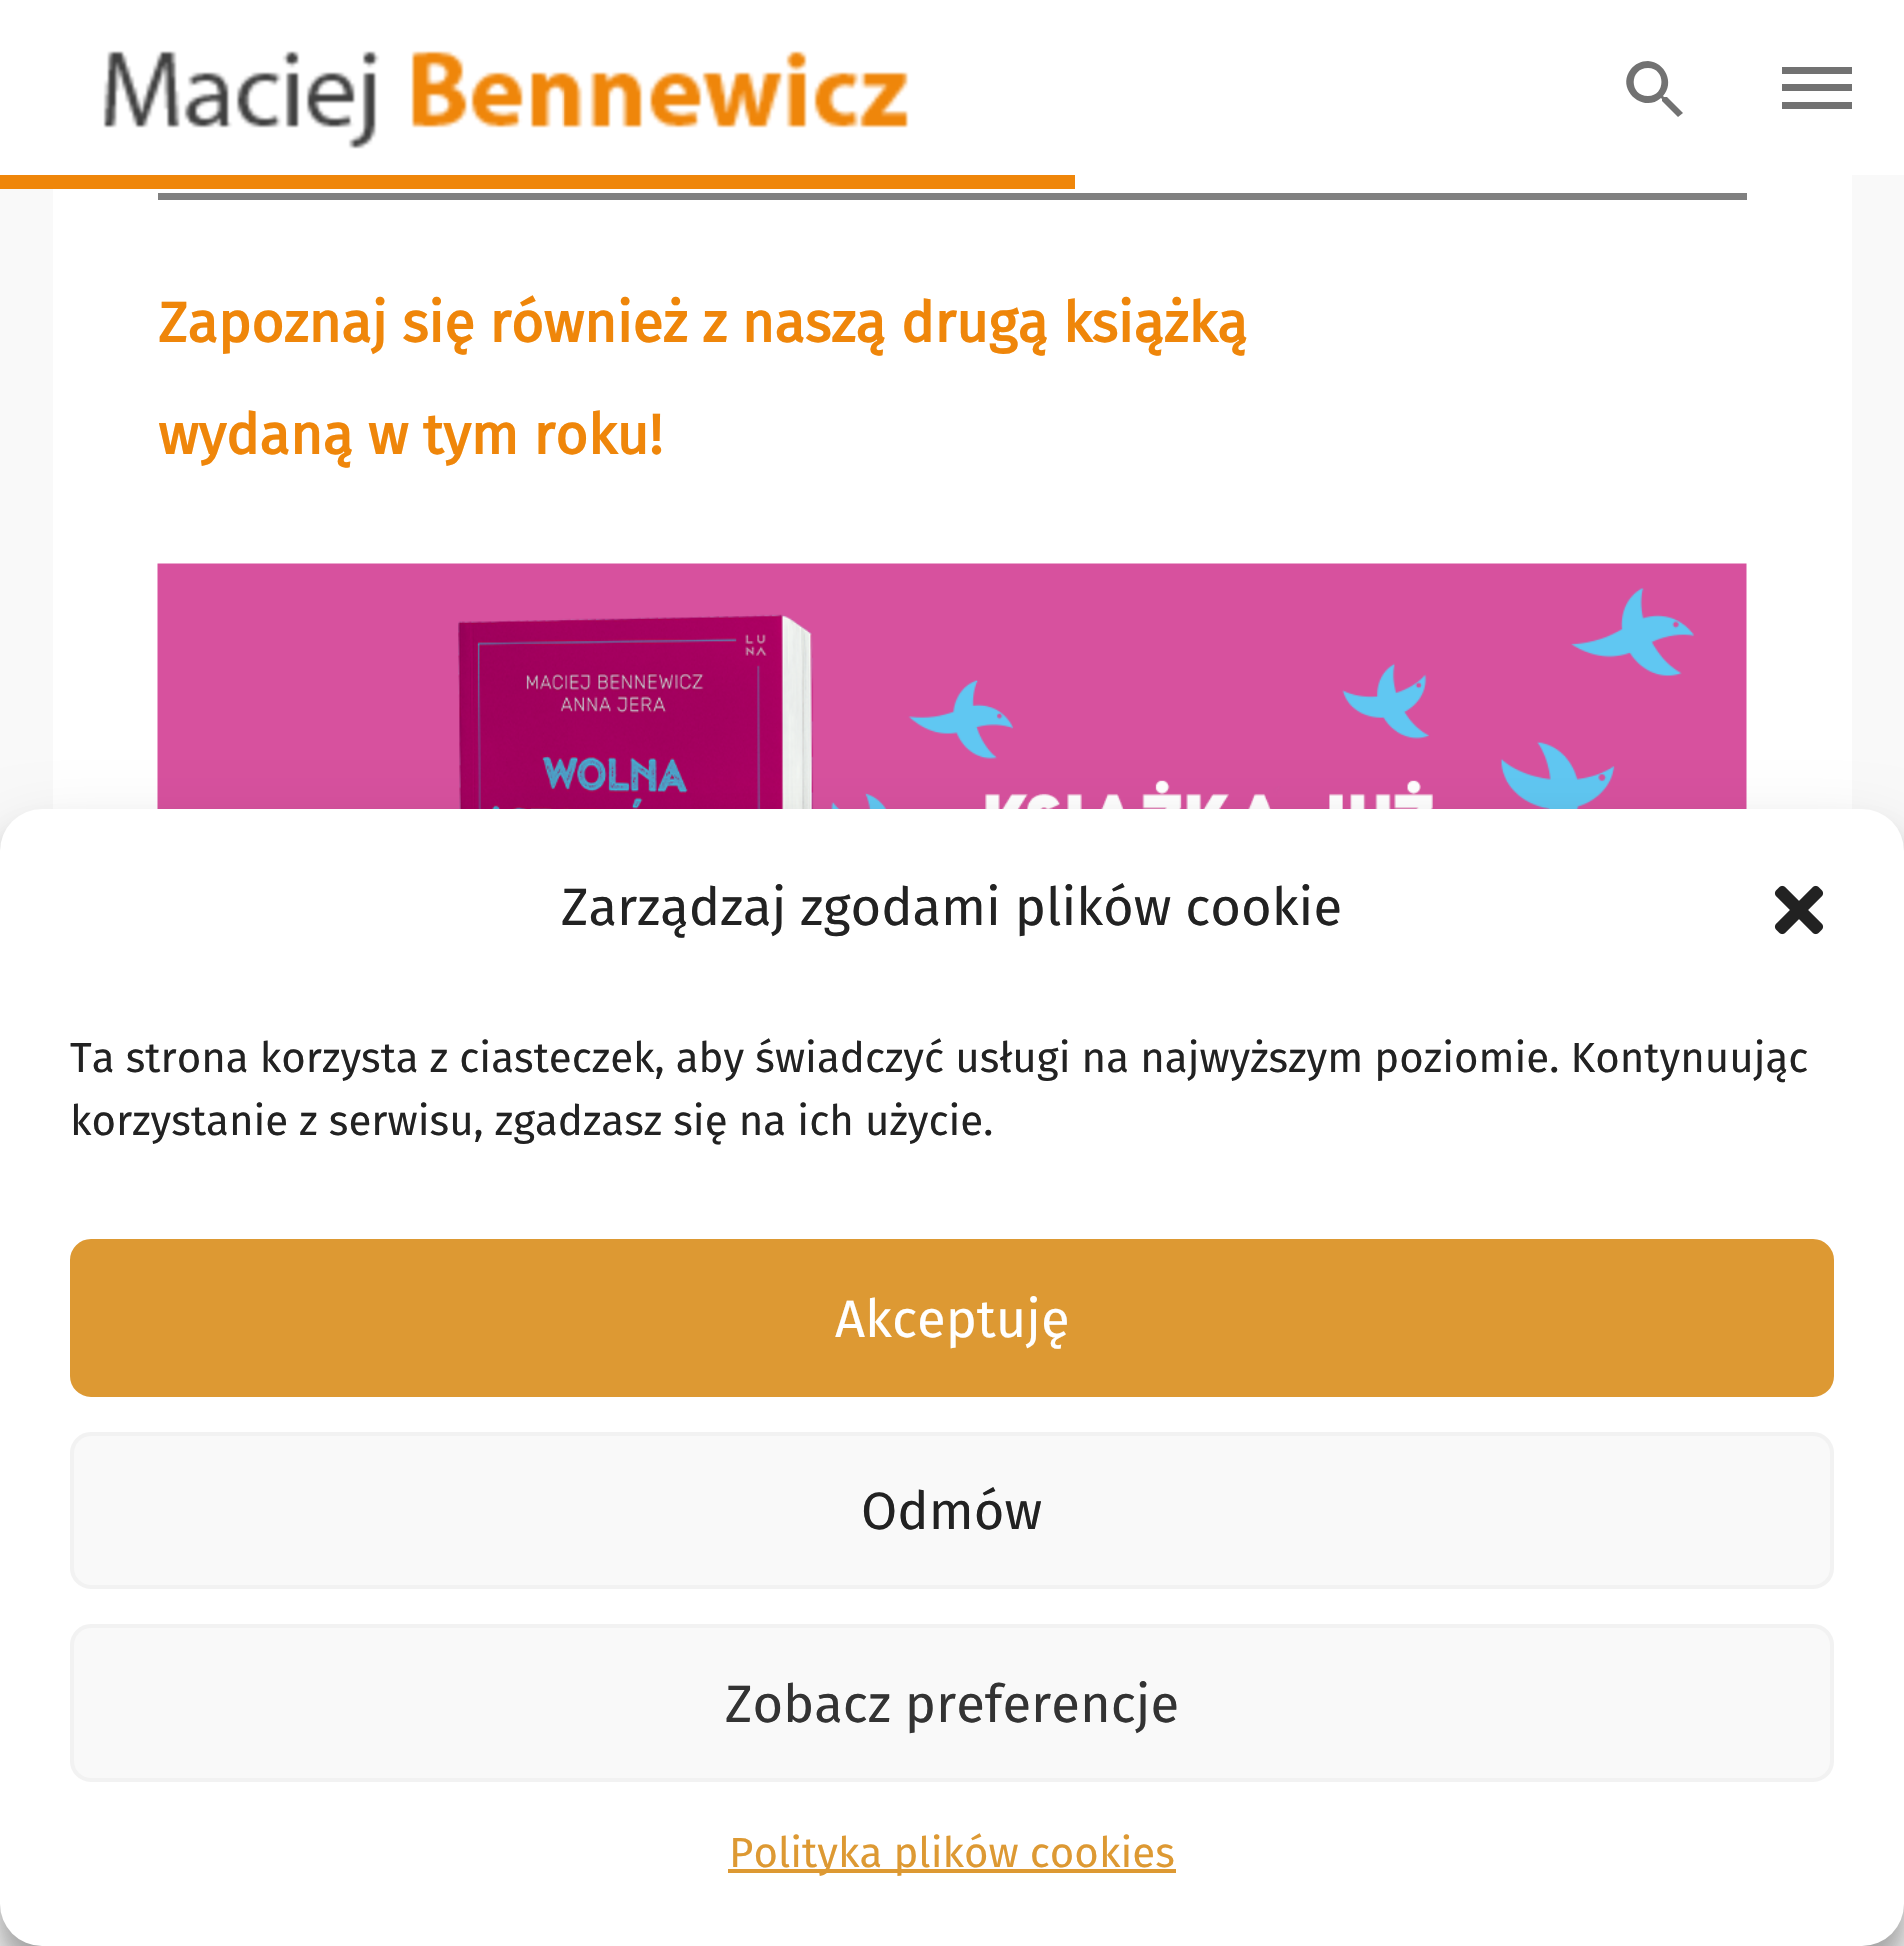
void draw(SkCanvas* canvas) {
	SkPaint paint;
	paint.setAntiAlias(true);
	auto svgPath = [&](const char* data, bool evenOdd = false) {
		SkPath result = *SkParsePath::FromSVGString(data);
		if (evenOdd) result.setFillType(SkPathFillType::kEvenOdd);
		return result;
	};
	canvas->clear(0xfff9f9f9);
	paint.setColor(0xffffffff);
	canvas->drawRect(SkRect::MakeXYWH(0, 0, 1904, 175), paint);
	canvas->drawImageRect(SkImages::DeferredFromEncodedData(SkData::MakeFromFileName("img1.png")), SkRect::MakeXYWH(103, 50, 806, 99), SkSamplingOptions());
	paint.setColor(0xff727272);
	canvas->drawPath(svgPath("M1648 61C1665 62 1675 83 1663 96L1664 97H1667L1683 113L1678 117L1662 101V99L1661 98C1643 114 1615 89 1631 69C1635 64 1641 61 1648 61ZM1648 68C1629 68 1629 96 1648 96C1666 96 1666 68 1648 68Z"), paint);
	canvas->drawRect(SkRect::MakeXYWH(1782, 67, 70, 7), paint);
	canvas->drawRect(SkRect::MakeXYWH(1782, 84, 70, 7), paint);
	canvas->drawRect(SkRect::MakeXYWH(1782, 102, 70, 7), paint);
	paint.setColor(0xffffffff);
	canvas->drawRect(SkRect::MakeXYWH(53, 175, 1799, 634), paint);
	paint.setColor(0xffef860a);
	canvas->drawRect(SkRect::MakeXYWH(0, 175, 1075, 14), paint);
	paint.setColor(0xff808080);
	canvas->drawRect(SkRect::MakeXYWH(158, 193, 1589, 7), paint);
	SkFont f1(fontMgr->matchFamilyStyle("Fira Sans", SkFontStyle::Bold()), 56);
	f1.setSubpixel(true);
	paint.setColor(0xffef860a);
	canvas->drawString("Zapoznaj się również z naszą drugą książką", 158, 342, f1, paint);
	canvas->drawString("wydaną w tym roku!", 158, 454, f1, paint);
	canvas->drawImageRect(SkImages::DeferredFromEncodedData(SkData::MakeFromFileName("img2.png")), SkRect::MakeXYWH(157, 563, 1590, 246), SkSamplingOptions());
	paint.setColor(0x3b000000);
	paint.setMaskFilter(SkMaskFilter::MakeBlur(kNormal_SkBlurStyle, 10.5));
	canvas->drawRoundRect(SkRect::MakeXYWH(0, 830, 1904, 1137), 42, 42, paint);
	paint.setMaskFilter(nullptr);
	paint.setColor(0x30000000);
	paint.setMaskFilter(SkMaskFilter::MakeBlur(kNormal_SkBlurStyle, 35));
	canvas->drawRoundRect(SkRect::MakeXYWH(0, 844, 1904, 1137), 42, 42, paint);
	paint.setMaskFilter(nullptr);
	paint.setColor(0xffffffff);
	canvas->drawRoundRect(SkRect::MakeXYWH(0, 809, 1904, 1137), 42, 42, paint);
	SkFont f2(fontMgr->matchFamilyStyle("Fira Sans", SkFontStyle::Normal()), 52.5);
	f2.setSubpixel(true);
	paint.setColor(0xff222222);
	canvas->drawString("Zarządzaj zgodami plików cookie", 561, 925, f2, paint);
	canvas->drawImageRect(SkImages::DeferredFromEncodedData(SkData::MakeFromFileName("img3.png")), SkRect::MakeXYWH(1774, 885, 50, 50), SkSamplingOptions());
	SkFont f3(fontMgr->matchFamilyStyle("Fira Sans", SkFontStyle::Normal()), 42);
	f3.setSubpixel(true);
	canvas->drawString("Ta strona korzysta z ciasteczek, aby świadczyć usługi na najwyższym poziomie. Kontynuując", 70, 1072, f3, paint);
	canvas->drawString("korzystanie z serwisu, zgadzasz się na ich użycie.", 70, 1135, f3, paint);
	paint.setColor(0xffdd9933);
	canvas->drawRoundRect(SkRect::MakeXYWH(72, 1241, 1760, 154), 19, 19, paint);
	paint.setStroke(true);
	paint.setStrokeWidth(4);
	canvas->drawRoundRect(SkRect::MakeXYWH(72, 1241, 1760, 154), 19, 19, paint);
	paint.setStroke(false);
	paint.setColor(0xffffffff);
	canvas->drawString("Akceptuję", 835, 1337, f2, paint);
	paint.setColor(0xfff9f9f9);
	canvas->drawRoundRect(SkRect::MakeXYWH(72, 1434, 1760, 153), 19, 19, paint);
	paint.setStroke(true);
	paint.setColor(0xfff2f2f2);
	canvas->drawRoundRect(SkRect::MakeXYWH(72, 1434, 1760, 153), 19, 19, paint);
	paint.setStroke(false);
	paint.setColor(0xff222222);
	canvas->drawString("Odmów", 861, 1529, f2, paint);
	paint.setColor(0xfff9f9f9);
	canvas->drawRoundRect(SkRect::MakeXYWH(72, 1626, 1760, 154), 19, 19, paint);
	paint.setStroke(true);
	paint.setColor(0xfff2f2f2);
	canvas->drawRoundRect(SkRect::MakeXYWH(72, 1626, 1760, 154), 19, 19, paint);
	paint.setStroke(false);
	paint.setColor(0xff333333);
	canvas->drawString("Zobacz preferencje", 725, 1722, f2, paint);
	paint.setColor(0xffdd9933);
	canvas->drawRect(SkRect::MakeXYWH(728, 1869, 448, 4), paint);
	canvas->drawString("Polityka plików cookies", 729, 1867, f3, paint);
}
